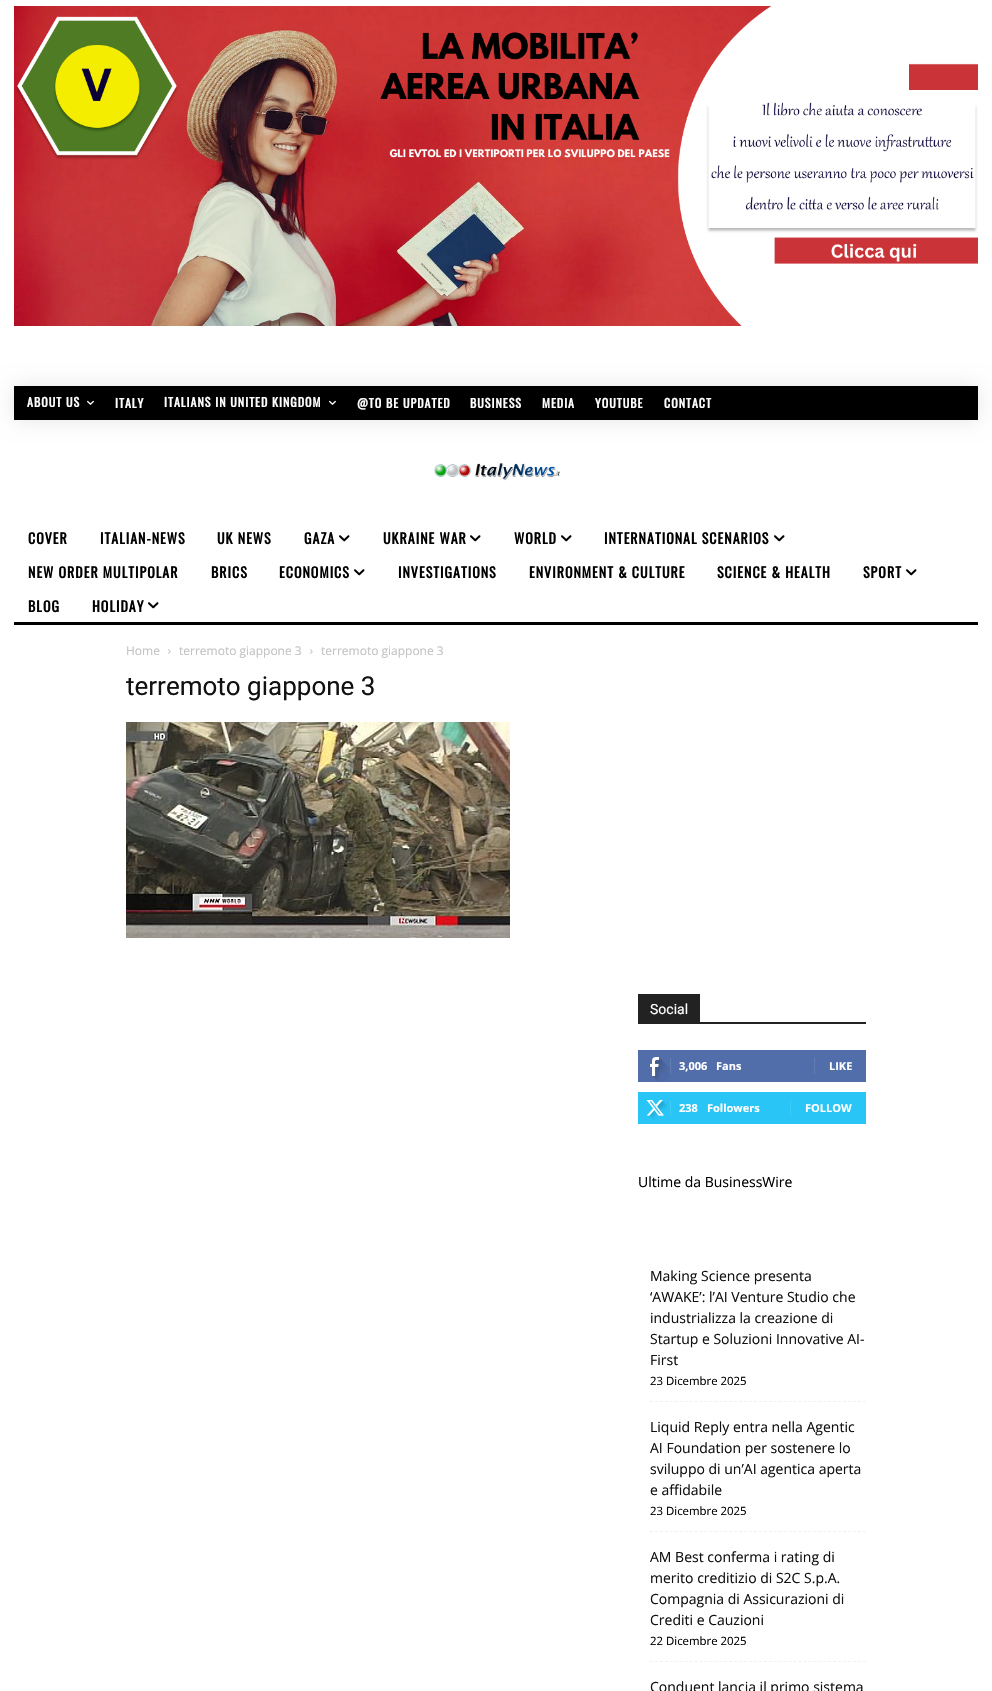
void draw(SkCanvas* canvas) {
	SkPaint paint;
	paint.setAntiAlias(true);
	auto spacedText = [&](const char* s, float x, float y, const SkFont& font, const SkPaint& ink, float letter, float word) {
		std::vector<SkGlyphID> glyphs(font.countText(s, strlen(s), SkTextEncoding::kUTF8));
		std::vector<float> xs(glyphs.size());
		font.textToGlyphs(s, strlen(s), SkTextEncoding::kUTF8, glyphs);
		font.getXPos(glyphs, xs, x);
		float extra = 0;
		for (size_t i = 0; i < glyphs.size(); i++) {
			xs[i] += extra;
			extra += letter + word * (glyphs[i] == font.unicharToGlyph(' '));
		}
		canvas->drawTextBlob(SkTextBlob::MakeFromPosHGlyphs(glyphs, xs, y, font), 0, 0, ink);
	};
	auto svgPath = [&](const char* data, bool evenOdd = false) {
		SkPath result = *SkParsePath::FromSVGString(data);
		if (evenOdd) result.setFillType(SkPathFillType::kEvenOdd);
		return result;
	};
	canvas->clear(0xffffffff);
	canvas->drawImageRect(SkImages::DeferredFromEncodedData(SkData::MakeFromFileName("img1.png")), SkRect::MakeXYWH(14, 6, 964, 320), SkSamplingOptions());
	paint.setColor(0x1a000000);
	paint.setMaskFilter(SkMaskFilter::MakeBlur(kNormal_SkBlurStyle, 10));
	canvas->drawRect(SkRect::MakeXYWH(14, 386, 964, 34), paint);
	paint.setMaskFilter(nullptr);
	paint.setColor(0xff000000);
	canvas->drawRect(SkRect::MakeXYWH(14, 386, 964, 34), paint);
	SkFont f1(fontMgr->matchFamilyStyle("Oswald", SkFontStyle::Bold()), 12);
	f1.setSubpixel(true);
	paint.setColor(0xffffffff);
	spacedText("ABOUT US", 27, 407, f1, paint, 1, 0);
	canvas->drawImageRect(SkImages::DeferredFromEncodedData(SkData::MakeFromFileName("img2.png")), SkRect::MakeXYWH(87, 400, 7, 5), SkSamplingOptions());
	spacedText("ITALY", 115, 408, f1, paint, 1, 0);
	spacedText("ITALIANS IN UNITED KINGDOM", 164, 407, f1, paint, 1, 0);
	canvas->drawImageRect(SkImages::DeferredFromEncodedData(SkData::MakeFromFileName("img2.png")), SkRect::MakeXYWH(329, 400, 7, 5), SkSamplingOptions());
	spacedText("@TO BE UPDATED", 357, 408, f1, paint, 1, 0);
	spacedText("BUSINESS", 470, 408, f1, paint, 1, 0);
	spacedText("MEDIA", 542, 408, f1, paint, 1, 0);
	spacedText("YOUTUBE", 595, 408, f1, paint, 1, 0);
	spacedText("CONTACT", 664, 408, f1, paint, 1, 0);
	canvas->drawImageRect(SkImages::DeferredFromEncodedData(SkData::MakeFromFileName("img3.png")), SkRect::MakeXYWH(434, 463, 127, 18), SkSamplingOptions());
	SkFont f2(fontMgr->matchFamilyStyle("Oswald", SkFontStyle::Bold()), 14);
	f2.setSubpixel(true);
	paint.setColor(0xff000000);
	spacedText("COVER", 28, 544, f2, paint, 1, 0);
	spacedText("ITALIAN-NEWS", 100, 544, f2, paint, 1, 0);
	spacedText("UK NEWS", 217, 544, f2, paint, 1, 0);
	spacedText("GAZA", 304, 544, f2, paint, 1, 0);
	canvas->drawImageRect(SkImages::DeferredFromEncodedData(SkData::MakeFromFileName("img4.png")), SkRect::MakeXYWH(339, 535, 11, 7), SkSamplingOptions());
	spacedText("UKRAINE WAR", 383, 544, f2, paint, 1, 0);
	canvas->drawImageRect(SkImages::DeferredFromEncodedData(SkData::MakeFromFileName("img4.png")), SkRect::MakeXYWH(470, 535, 11, 7), SkSamplingOptions());
	spacedText("WORLD", 514, 544, f2, paint, 1, 0);
	canvas->drawImageRect(SkImages::DeferredFromEncodedData(SkData::MakeFromFileName("img4.png")), SkRect::MakeXYWH(561, 535, 11, 7), SkSamplingOptions());
	spacedText("INTERNATIONAL SCENARIOS", 604, 544, f2, paint, 1, 0);
	canvas->drawImageRect(SkImages::DeferredFromEncodedData(SkData::MakeFromFileName("img4.png")), SkRect::MakeXYWH(774, 535, 11, 7), SkSamplingOptions());
	spacedText("NEW ORDER MULTIPOLAR", 28, 578, f2, paint, 1, 0);
	spacedText("BRICS", 211, 578, f2, paint, 1, 0);
	spacedText("ECONOMICS", 279, 578, f2, paint, 1, 0);
	canvas->drawImageRect(SkImages::DeferredFromEncodedData(SkData::MakeFromFileName("img4.png")), SkRect::MakeXYWH(354, 569, 11, 7), SkSamplingOptions());
	spacedText("INVESTIGATIONS", 398, 578, f2, paint, 1, 0);
	spacedText("ENVIRONMENT & CULTURE", 529, 578, f2, paint, 1, 0);
	spacedText("SCIENCE & HEALTH", 717, 578, f2, paint, 1, 0);
	spacedText("SPORT", 863, 578, f2, paint, 1, 0);
	canvas->drawImageRect(SkImages::DeferredFromEncodedData(SkData::MakeFromFileName("img4.png")), SkRect::MakeXYWH(906, 569, 11, 7), SkSamplingOptions());
	spacedText("BLOG", 28, 612, f2, paint, 1, 0);
	spacedText("HOLIDAY", 92, 612, f2, paint, 1, 0);
	canvas->drawImageRect(SkImages::DeferredFromEncodedData(SkData::MakeFromFileName("img4.png")), SkRect::MakeXYWH(148, 602, 11, 7), SkSamplingOptions());
	canvas->drawRect(SkRect::MakeXYWH(14, 622, 964, 3), paint);
	SkFont f3(fontMgr->matchFamilyStyle("Open Sans", SkFontStyle::Normal()), 12);
	f3.setSubpixel(true);
	paint.setColor(0xffc3c3c3);
	canvas->drawString("Home", 126, 655, f3, paint);
	canvas->drawImageRect(SkImages::DeferredFromEncodedData(SkData::MakeFromFileName("img5.png")), SkRect::MakeXYWH(168, 649, 3, 5), SkSamplingOptions());
	canvas->drawString("terremoto giappone 3", 179, 655, f3, paint);
	canvas->drawImageRect(SkImages::DeferredFromEncodedData(SkData::MakeFromFileName("img5.png")), SkRect::MakeXYWH(310, 649, 3, 5), SkSamplingOptions());
	canvas->drawString("terremoto giappone 3", 321, 655, f3, paint);
	SkFont f4(fontMgr->matchFamilyStyle("Roboto", SkFontStyle::Normal()), 26);
	f4.setSubpixel(true);
	paint.setColor(0xff111111);
	canvas->drawString("terremoto giappone 3", 126, 695, f4, paint);
	canvas->drawImageRect(SkImages::DeferredFromEncodedData(SkData::MakeFromFileName("img6.png")), SkRect::MakeXYWH(126, 722, 384, 216), SkSamplingOptions());
	paint.setColor(0xff222222);
	canvas->drawRect(SkRect::MakeXYWH(638, 1022, 228, 2), paint);
	canvas->drawRect(SkRect::MakeXYWH(638, 994, 62, 28), paint);
	SkFont f5(fontMgr->matchFamilyStyle("Roboto", SkFontStyle::Normal()), 14);
	f5.setSubpixel(true);
	paint.setColor(0xffffffff);
	canvas->drawString("Social", 650, 1014, f5, paint);
	paint.setColor(0xff516eab);
	canvas->drawRect(SkRect::MakeXYWH(638, 1050, 228, 32), paint);
	canvas->drawImageRect(SkImages::DeferredFromEncodedData(SkData::MakeFromFileName("img7.png")), SkRect::MakeXYWH(650, 1057, 20, 25), SkSamplingOptions());
	paint.setColor(0xff627db3);
	canvas->drawRect(SkRect::MakeXYWH(670, 1058, 1, 16), paint);
	SkFont f6(fontMgr->matchFamilyStyle("Open Sans", SkFontStyle::Bold()), 11);
	f6.setSubpixel(true);
	paint.setColor(0xffffffff);
	canvas->drawString("3,006", 679, 1070, f6, paint);
	canvas->drawString("Fans", 716, 1070, f6, paint);
	paint.setColor(0xff627db3);
	canvas->drawRect(SkRect::MakeXYWH(814, 1058, 1, 16), paint);
	paint.setColor(0xffffffff);
	canvas->drawString("LIKE", 829, 1070, f6, paint);
	paint.setColor(0xff29c5f6);
	canvas->drawRect(SkRect::MakeXYWH(638, 1092, 228, 32), paint);
	canvas->drawImageRect(SkImages::DeferredFromEncodedData(SkData::MakeFromFileName("img8.png")), SkRect::MakeXYWH(646, 1100, 22, 20), SkSamplingOptions());
	paint.setColor(0xff3ecbf7);
	canvas->drawRect(SkRect::MakeXYWH(670, 1100, 1, 16), paint);
	paint.setColor(0xffffffff);
	canvas->drawString("238", 679, 1112, f6, paint);
	canvas->drawString("Followers", 707, 1112, f6, paint);
	paint.setColor(0xff3ecbf7);
	canvas->drawRect(SkRect::MakeXYWH(790, 1100, 1, 16), paint);
	paint.setColor(0xffffffff);
	canvas->drawString("FOLLOW", 805, 1112, f6, paint);
	SkFont f7(fontMgr->matchFamilyStyle("Open Sans", SkFontStyle::Normal()), 14);
	f7.setSubpixel(true);
	paint.setColor(0xff000000);
	canvas->drawString("Ultime da BusinessWire", 638, 1187, f7, paint);
	paint.setStroke(true);
	paint.setStrokeWidth(1);
	paint.setColor(0xfff1f1f1);
	paint.setPathEffect(SkDashPathEffect::Make({{3, 1.95f}}, 0));
	canvas->drawPath(svgPath("M650 1401.5H866"), paint);
	paint.setPathEffect(nullptr);
	paint.setStroke(false);
	paint.setColor(0xff111111);
	canvas->drawString("Making Science presenta", 650, 1281, f7, paint);
	canvas->drawString("‘AWAKE’: l’AI Venture Studio che", 650, 1302, f7, paint);
	canvas->drawString("industrializza la creazione di", 650, 1323, f7, paint);
	canvas->drawString("Startup e Soluzioni Innovative AI-", 650, 1344, f7, paint);
	canvas->drawString("First", 650, 1365, f7, paint);
	SkFont f8(fontMgr->matchFamilyStyle("Open Sans", SkFontStyle::Normal()), 11.4);
	f8.setSubpixel(true);
	paint.setColor(0xff000000);
	canvas->drawString("23 Dicembre 2025", 650, 1385, f8, paint);
	paint.setStroke(true);
	paint.setColor(0xfff1f1f1);
	paint.setPathEffect(SkDashPathEffect::Make({{3, 1.95f}}, 0));
	canvas->drawPath(svgPath("M650 1531.5H866"), paint);
	paint.setPathEffect(nullptr);
	paint.setStroke(false);
	paint.setColor(0xff111111);
	canvas->drawString("Liquid Reply entra nella Agentic", 650, 1432, f7, paint);
	canvas->drawString("AI Foundation per sostenere lo", 650, 1453, f7, paint);
	canvas->drawString("sviluppo di un’AI agentica aperta", 650, 1474, f7, paint);
	canvas->drawString("e affidabile", 650, 1495, f7, paint);
	paint.setColor(0xff000000);
	canvas->drawString("23 Dicembre 2025", 650, 1515, f8, paint);
	paint.setStroke(true);
	paint.setColor(0xfff1f1f1);
	paint.setPathEffect(SkDashPathEffect::Make({{3, 1.95f}}, 0));
	canvas->drawPath(svgPath("M650 1661.5H866"), paint);
	paint.setPathEffect(nullptr);
	paint.setStroke(false);
	paint.setColor(0xff111111);
	canvas->drawString("AM Best conferma i rating di", 650, 1562, f7, paint);
	canvas->drawString("merito creditizio di S2C S.p.A.", 650, 1583, f7, paint);
	canvas->drawString("Compagnia di Assicurazioni di", 650, 1604, f7, paint);
	canvas->drawString("Crediti e Cauzioni", 650, 1625, f7, paint);
	paint.setColor(0xff000000);
	canvas->drawString("22 Dicembre 2025", 650, 1645, f8, paint);
	paint.setColor(0xff111111);
	canvas->drawString("Conduent lancia il primo sistema", 650, 1692, f7, paint);
}
